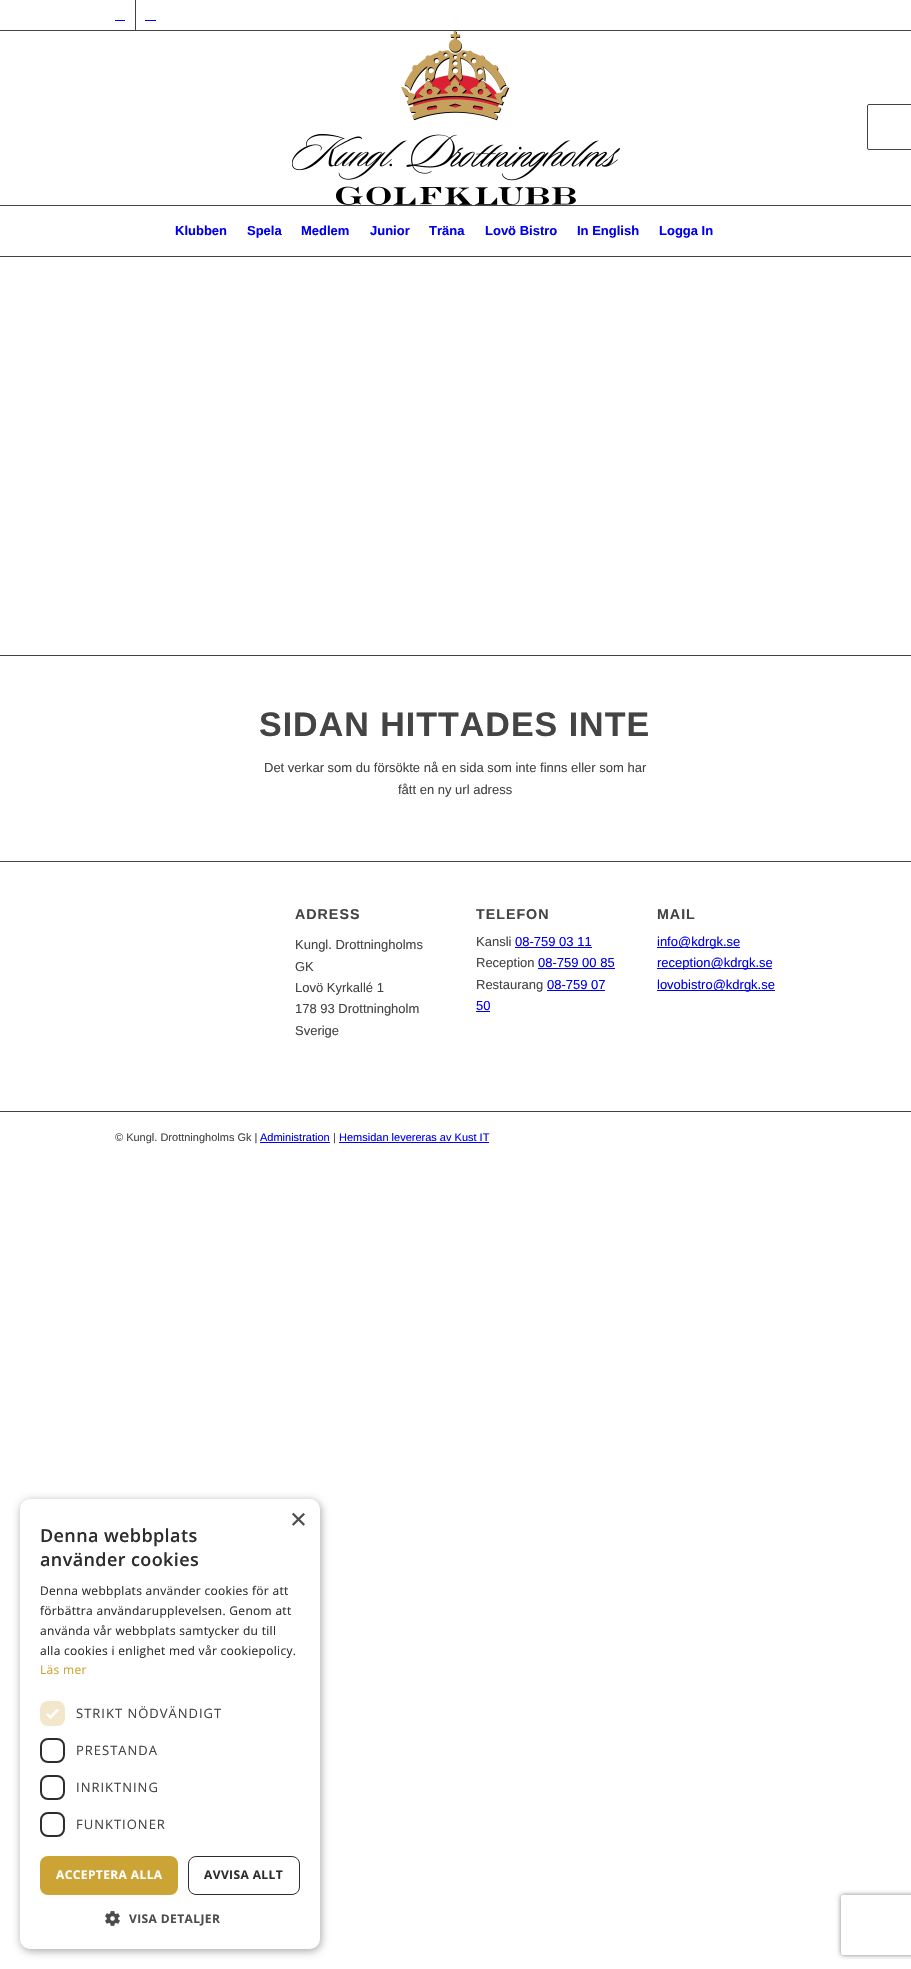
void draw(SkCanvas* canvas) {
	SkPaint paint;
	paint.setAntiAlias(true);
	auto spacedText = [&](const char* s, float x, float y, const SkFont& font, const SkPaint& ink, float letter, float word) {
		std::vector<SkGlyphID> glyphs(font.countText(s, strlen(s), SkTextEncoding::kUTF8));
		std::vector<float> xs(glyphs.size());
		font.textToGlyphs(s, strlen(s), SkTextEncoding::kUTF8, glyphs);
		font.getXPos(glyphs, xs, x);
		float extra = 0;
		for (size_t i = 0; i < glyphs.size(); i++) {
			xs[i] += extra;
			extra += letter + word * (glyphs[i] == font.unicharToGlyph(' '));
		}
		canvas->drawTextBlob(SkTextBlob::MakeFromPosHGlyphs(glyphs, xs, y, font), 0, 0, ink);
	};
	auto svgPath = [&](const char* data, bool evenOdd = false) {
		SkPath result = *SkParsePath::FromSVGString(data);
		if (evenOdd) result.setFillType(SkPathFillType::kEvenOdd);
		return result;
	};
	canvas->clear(0xffffffff);
	paint.setColor(0xff444444);
	canvas->drawRect(SkRect::MakeXYWH(135, 0, 1, 30), paint);
	paint.setColor(0xff0000ee);
	canvas->drawRect(SkRect::MakeXYWH(115, 20, 10, 1), paint);
	canvas->drawRect(SkRect::MakeXYWH(145, 20, 11, 1), paint);
	paint.setColor(0xff444444);
	canvas->drawRect(SkRect::MakeXYWH(0, 30, 911, 1), paint);
	canvas->drawRect(SkRect::MakeXYWH(0, 256, 911, 1), paint);
	canvas->drawImageRect(SkImages::DeferredFromEncodedData(SkData::MakeFromFileName("img1.png")), SkRect::MakeXYWH(292, 31, 328, 174), SkSamplingOptions());
	paint.setStroke(true);
	paint.setStrokeWidth(1);
	canvas->drawRoundRect(SkRect::MakeXYWH(867.5, 104.5, 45, 45), 1.5, 1.5, paint);
	paint.setStroke(false);
	canvas->drawRect(SkRect::MakeXYWH(0, 205, 911, 1), paint);
	SkFont f1(fontMgr->matchFamilyStyle("Liberation Sans", SkFontStyle::Bold()), 13);
	f1.setSubpixel(true);
	paint.setColor(0xff0000ee);
	canvas->drawString("Klubben", 175, 235, f1, paint);
	canvas->drawString("Spela", 247, 235, f1, paint);
	canvas->drawString("Medlem", 301, 235, f1, paint);
	canvas->drawString("Junior", 370, 235, f1, paint);
	canvas->drawString("Träna", 429, 235, f1, paint);
	canvas->drawString("Lovö Bistro", 485, 235, f1, paint);
	canvas->drawString("In English", 577, 235, f1, paint);
	canvas->drawString("Logga In", 659, 235, f1, paint);
	paint.setColor(0xff444444);
	canvas->drawRect(SkRect::MakeXYWH(0, 655, 911, 1), paint);
	SkFont f2(fontMgr->matchFamilyStyle("Liberation Sans", SkFontStyle::Bold()), 34);
	f2.setSubpixel(true);
	spacedText("SIDAN HITTADES INTE", 259, 736, f2, paint, 1, 0);
	SkFont f3(fontMgr->matchFamilyStyle("Liberation Sans", SkFontStyle::Normal()), 13);
	f3.setSubpixel(true);
	canvas->drawString("Det verkar som du försökte nå en sida som inte finns eller som har", 264, 772, f3, paint);
	canvas->drawString("fått en ny url adress", 398, 794, f3, paint);
	canvas->drawRect(SkRect::MakeXYWH(0, 861, 911, 1), paint);
	SkFont f4(fontMgr->matchFamilyStyle("Liberation Sans", SkFontStyle::Bold()), 14.25);
	f4.setSubpixel(true);
	spacedText("ADRESS", 295, 919, f4, paint, 1, 0);
	canvas->drawString("Kungl. Drottningholms", 295, 949, f3, paint);
	canvas->drawString("GK", 295, 971, f3, paint);
	canvas->drawString("Lovö Kyrkallé 1", 295, 992, f3, paint);
	canvas->drawString("178 93 Drottningholm", 295, 1013, f3, paint);
	canvas->drawString("Sverige", 295, 1035, f3, paint);
	spacedText("TELEFON", 476, 919, f4, paint, 1, 0);
	canvas->drawString("Kansli", 476, 946, f3, paint);
	paint.setColor(0xff0000ee);
	canvas->drawString("08-759 03 11", 515, 946, f3, paint);
	canvas->drawRect(SkRect::MakeXYWH(515, 947, 77, 1), paint);
	paint.setColor(0xff444444);
	canvas->drawString("Reception", 476, 967, f3, paint);
	paint.setColor(0xff0000ee);
	canvas->drawString("08-759 00 85", 538, 967, f3, paint);
	canvas->drawRect(SkRect::MakeXYWH(538, 968, 77, 1), paint);
	paint.setColor(0xff444444);
	canvas->drawString("Restaurang", 476, 989, f3, paint);
	paint.setColor(0xff0000ee);
	canvas->drawString("08-759 07", 547, 989, f3, paint);
	canvas->drawRect(SkRect::MakeXYWH(547, 990, 58, 1), paint);
	canvas->drawString("50", 476, 1010, f3, paint);
	canvas->drawRect(SkRect::MakeXYWH(476, 1011, 14, 1), paint);
	paint.setColor(0xff444444);
	spacedText("MAIL", 657, 919, f4, paint, 1, 0);
	paint.setColor(0xff0000ee);
	canvas->drawRect(SkRect::MakeXYWH(657, 947, 83, 1), paint);
	canvas->drawString("info@kdrgk.se", 657, 946, f3, paint);
	canvas->drawRect(SkRect::MakeXYWH(657, 968, 115, 1), paint);
	canvas->drawString("reception@kdrgk.se", 657, 967, f3, paint);
	canvas->drawRect(SkRect::MakeXYWH(657, 990, 118, 1), paint);
	canvas->drawString("lovobistro@kdrgk.se", 657, 989, f3, paint);
	paint.setColor(0xff444444);
	canvas->drawRect(SkRect::MakeXYWH(0, 1111, 911, 1), paint);
	SkFont f5(fontMgr->matchFamilyStyle("Liberation Sans", SkFontStyle::Normal()), 11);
	f5.setSubpixel(true);
	canvas->drawString("© Kungl. Drottningholms Gk |", 115, 1141, f5, paint);
	paint.setColor(0xff0000ee);
	canvas->drawString("Administration", 260, 1141, f5, paint);
	canvas->drawRect(SkRect::MakeXYWH(260, 1142, 70, 1), paint);
	paint.setColor(0xff444444);
	canvas->drawString("|", 333, 1141, f5, paint);
	paint.setColor(0xff0000ee);
	canvas->drawString("Hemsidan levereras av Kust IT", 339, 1141, f5, paint);
	canvas->drawRect(SkRect::MakeXYWH(339, 1142, 150, 1), paint);
	paint.setColor(0x59000000);
	paint.setMaskFilter(SkMaskFilter::MakeBlur(kNormal_SkBlurStyle, 4));
	canvas->drawRoundRect(SkRect::MakeXYWH(21, 1501, 300, 450), 10, 10, paint);
	paint.setMaskFilter(nullptr);
	paint.setColor(0xffffffff);
	canvas->drawRoundRect(SkRect::MakeXYWH(20, 1499, 300, 450), 10, 10, paint);
	SkFont f6(fontMgr->matchFamilyStyle("Liberation Sans", SkFontStyle::Normal()), 29);
	f6.setSubpixel(true);
	paint.setColor(0xff4d4d4d);
	canvas->drawString("×", 290, 1529, f6, paint);
	SkFont f7(fontMgr->matchFamilyStyle("Open Sans", SkFontStyle(600, SkFontStyle::kNormal_Width, SkFontStyle::kUpright_Slant)), 18);
	f7.setSubpixel(true);
	paint.setColor(0xff2d2d2d);
	spacedText("Denna webbplats", 40, 1542, f7, paint, 0.4, 0);
	spacedText("använder cookies", 40, 1566, f7, paint, 0.4, 0);
	SkFont f8(fontMgr->matchFamilyStyle("Open Sans", SkFontStyle::Normal()), 12);
	f8.setSubpixel(true);
	spacedText("Denna webbplats använder cookies för att", 40, 1595, f8, paint, 0.3, 0);
	spacedText("förbättra användarupplevelsen. Genom att", 40, 1615, f8, paint, 0.3, 0);
	spacedText("använda vår webbplats samtycker du till", 40, 1635, f8, paint, 0.3, 0);
	spacedText("alla cookies i enlighet med vår cookiepolicy.", 40, 1655, f8, paint, 0.3, 0);
	paint.setColor(0xffcca335);
	spacedText("Läs mer", 40, 1674, f8, paint, 0.3, 0);
	paint.setColor(0xfff2e7ca);
	canvas->drawRoundRect(SkRect::MakeXYWH(40, 1701, 25, 25), 8, 8, paint);
	paint.setStroke(true);
	paint.setStrokeWidth(2.6);
	paint.setColor(0xffffffff);
	canvas->drawPath(svgPath("M47 1714L50.5 1717.5L58 1709.5"), paint);
	SkFont f9(fontMgr->matchFamilyStyle("Open Sans", SkFontStyle::Normal()), 13);
	f9.setSubpixel(true);
	paint.setStroke(false);
	paint.setColor(0xff444444);
	spacedText("STRIKT NÖDVÄNDIGT", 76, 1718, f9, paint, 1, 0);
	paint.setStroke(true);
	paint.setStrokeWidth(2);
	paint.setColor(0xff2d2d2d);
	canvas->drawRoundRect(SkRect::MakeXYWH(41, 1739, 23, 23), 7, 7, paint);
	paint.setStroke(false);
	paint.setColor(0xff444444);
	spacedText("PRESTANDA", 76, 1755, f9, paint, 1, 0);
	paint.setStroke(true);
	paint.setColor(0xff2d2d2d);
	canvas->drawRoundRect(SkRect::MakeXYWH(41, 1776, 23, 23), 7, 7, paint);
	paint.setStroke(false);
	paint.setColor(0xff444444);
	spacedText("INRIKTNING", 76, 1792, f9, paint, 1, 0);
	paint.setStroke(true);
	paint.setColor(0xff2d2d2d);
	canvas->drawRoundRect(SkRect::MakeXYWH(41, 1813, 23, 23), 7, 7, paint);
	paint.setStroke(false);
	paint.setColor(0xff444444);
	spacedText("FUNKTIONER", 76, 1829, f9, paint, 1, 0);
	paint.setColor(0xffcca335);
	canvas->drawRoundRect(SkRect::MakeXYWH(40, 1856, 138, 39), 8, 8, paint);
	SkFont f10(fontMgr->matchFamilyStyle("Open Sans", SkFontStyle::Bold()), 12);
	f10.setSubpixel(true);
	paint.setColor(0xffffffff);
	spacedText("ACCEPTERA ALLA", 56, 1879, f10, paint, 0.4, 0);
	paint.setStroke(true);
	paint.setStrokeWidth(1);
	paint.setColor(0xff2d2d2d);
	canvas->drawRoundRect(SkRect::MakeXYWH(188.5, 1856.5, 111, 38), 7.5, 7.5, paint);
	paint.setStroke(false);
	spacedText("AVVISA ALLT", 204, 1879, f10, paint, 0.4, 0);
	canvas->drawImageRect(SkImages::DeferredFromEncodedData(SkData::MakeFromFileName("img2.png")), SkRect::MakeXYWH(105, 1911, 15, 15), SkSamplingOptions());
	paint.setColor(0xff4d4d4d);
	spacedText("VISA DETALJER", 129, 1923, f10, paint, 0.4, 0);
	canvas->save();
	canvas->clipPath(svgPath("M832 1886H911V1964H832ZM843 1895H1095C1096 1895 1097 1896 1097 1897V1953C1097 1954 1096 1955 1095 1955H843C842 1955 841 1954 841 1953V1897C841 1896 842 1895 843 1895Z", true), true);
	paint.setColor(0xff808080);
	paint.setMaskFilter(SkMaskFilter::MakeBlur(kNormal_SkBlurStyle, 2.5));
	canvas->drawRoundRect(SkRect::MakeXYWH(841, 1895, 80, 60), 2, 2, paint);
	paint.setMaskFilter(nullptr);
	canvas->restore();
}
